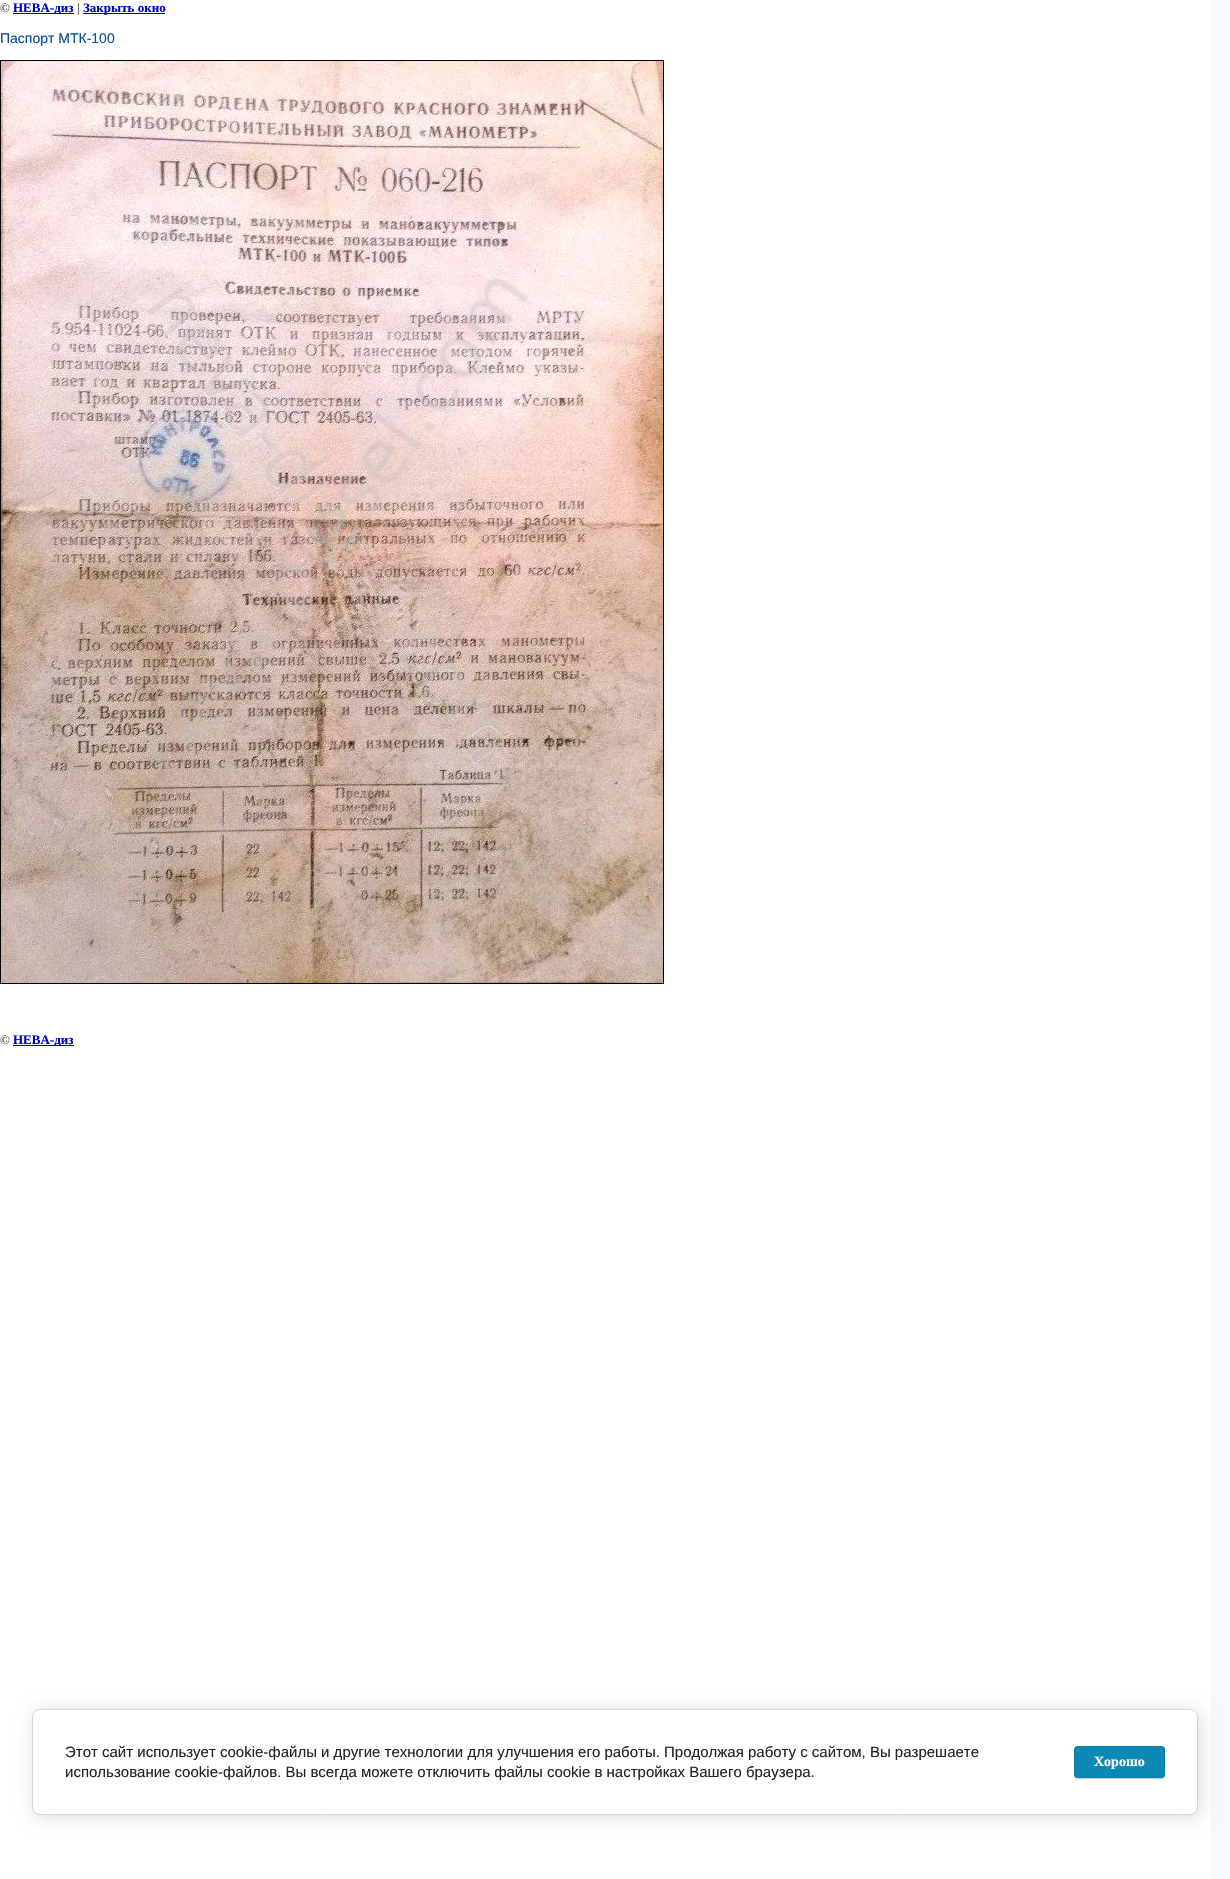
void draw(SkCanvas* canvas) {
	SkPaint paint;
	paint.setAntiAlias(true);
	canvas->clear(0xffffffff);
	paint.setColor(0xfff4fafb);
	canvas->drawRect(SkRect::MakeXYWH(1211, 0, 19, 1879), paint);
	SkFont f1(fontMgr->matchFamilyStyle("Liberation Serif", SkFontStyle::Normal()), 13);
	f1.setSubpixel(true);
	paint.setColor(0xff393939);
	canvas->drawString("©", 0, 12, f1, paint);
	paint.setColor(0xff0000cc);
	canvas->drawRect(SkRect::MakeXYWH(13, 13, 61, 1), paint);
	SkFont f2(fontMgr->matchFamilyStyle("Liberation Serif", SkFontStyle::Bold()), 13);
	f2.setSubpixel(true);
	canvas->drawString("НЕВА-диз", 13, 12, f2, paint);
	paint.setColor(0xff393939);
	canvas->drawString("|", 77, 12, f1, paint);
	paint.setColor(0xff0000cc);
	canvas->drawRect(SkRect::MakeXYWH(83, 13, 82, 1), paint);
	canvas->drawString("Закрыть окно", 83, 12, f2, paint);
	SkFont f3(fontMgr->matchFamilyStyle("Liberation Sans", SkFontStyle::Normal()), 14);
	f3.setSubpixel(true);
	paint.setColor(0xff054d9a);
	canvas->drawString("Паспорт МТК-100", 0, 43, f3, paint);
	paint.setStroke(true);
	paint.setStrokeWidth(1);
	paint.setColor(0xff000000);
	canvas->drawRect(SkRect::MakeXYWH(0.5, 60.5, 663, 923), paint);
	canvas->drawImageRect(SkImages::DeferredFromEncodedData(SkData::MakeFromFileName("img1.png")), SkRect::MakeXYWH(1, 61, 662, 922), SkSamplingOptions());
	paint.setStroke(false);
	paint.setColor(0xff393939);
	canvas->drawString("©", 0, 1044, f1, paint);
	paint.setColor(0xff0000cc);
	canvas->drawRect(SkRect::MakeXYWH(13, 1045, 61, 1), paint);
	canvas->drawString("НЕВА-диз", 13, 1044, f2, paint);
	paint.setColor(0x24000000);
	paint.setMaskFilter(SkMaskFilter::MakeBlur(kNormal_SkBlurStyle, 9));
	canvas->drawRoundRect(SkRect::MakeXYWH(34, 1711, 1166, 106), 8, 8, paint);
	paint.setMaskFilter(nullptr);
	paint.setColor(0xffffffff);
	canvas->drawRoundRect(SkRect::MakeXYWH(32.5, 1709.5, 1165, 105), 7.5, 7.5, paint);
	paint.setStroke(true);
	paint.setColor(0xffd6d6d6);
	canvas->drawRoundRect(SkRect::MakeXYWH(32.5, 1709.5, 1165, 105), 7.5, 7.5, paint);
	SkFont f4(fontMgr->matchFamilyStyle("Liberation Sans", SkFontStyle::Normal()), 15);
	f4.setSubpixel(true);
	paint.setStroke(false);
	paint.setColor(0xff212121);
	canvas->drawString("Этот сайт использует cookie-файлы и другие технологии для улучшения его работы. Продолжая работу с сайтом, Вы разрешаете", 65, 1757, f4, paint);
	canvas->drawString("использование cookie-файлов. Вы всегда можете отключить файлы cookie в настройках Вашего браузера.", 65, 1777, f4, paint);
	paint.setColor(0x33000000);
	paint.setMaskFilter(SkMaskFilter::MakeBlur(kNormal_SkBlurStyle, 0.5));
	canvas->drawRoundRect(SkRect::MakeXYWH(1074, 1747, 91, 32), 4, 4, paint);
	paint.setMaskFilter(nullptr);
	paint.setColor(0xff0989b3);
	canvas->drawRoundRect(SkRect::MakeXYWH(1074, 1746, 91, 32), 4, 4, paint);
	paint.setStroke(true);
	paint.setColor(0x1a000000);
	canvas->drawRoundRect(SkRect::MakeXYWH(1074.5, 1746.5, 90, 31), 3.5, 3.5, paint);
	SkFont f5(fontMgr->matchFamilyStyle("Liberation Serif", SkFontStyle::Bold()), 14);
	f5.setSubpixel(true);
	paint.setStroke(false);
	paint.setColor(0xffffffff);
	canvas->drawString("Хорошо", 1094, 1766, f5, paint);
}
